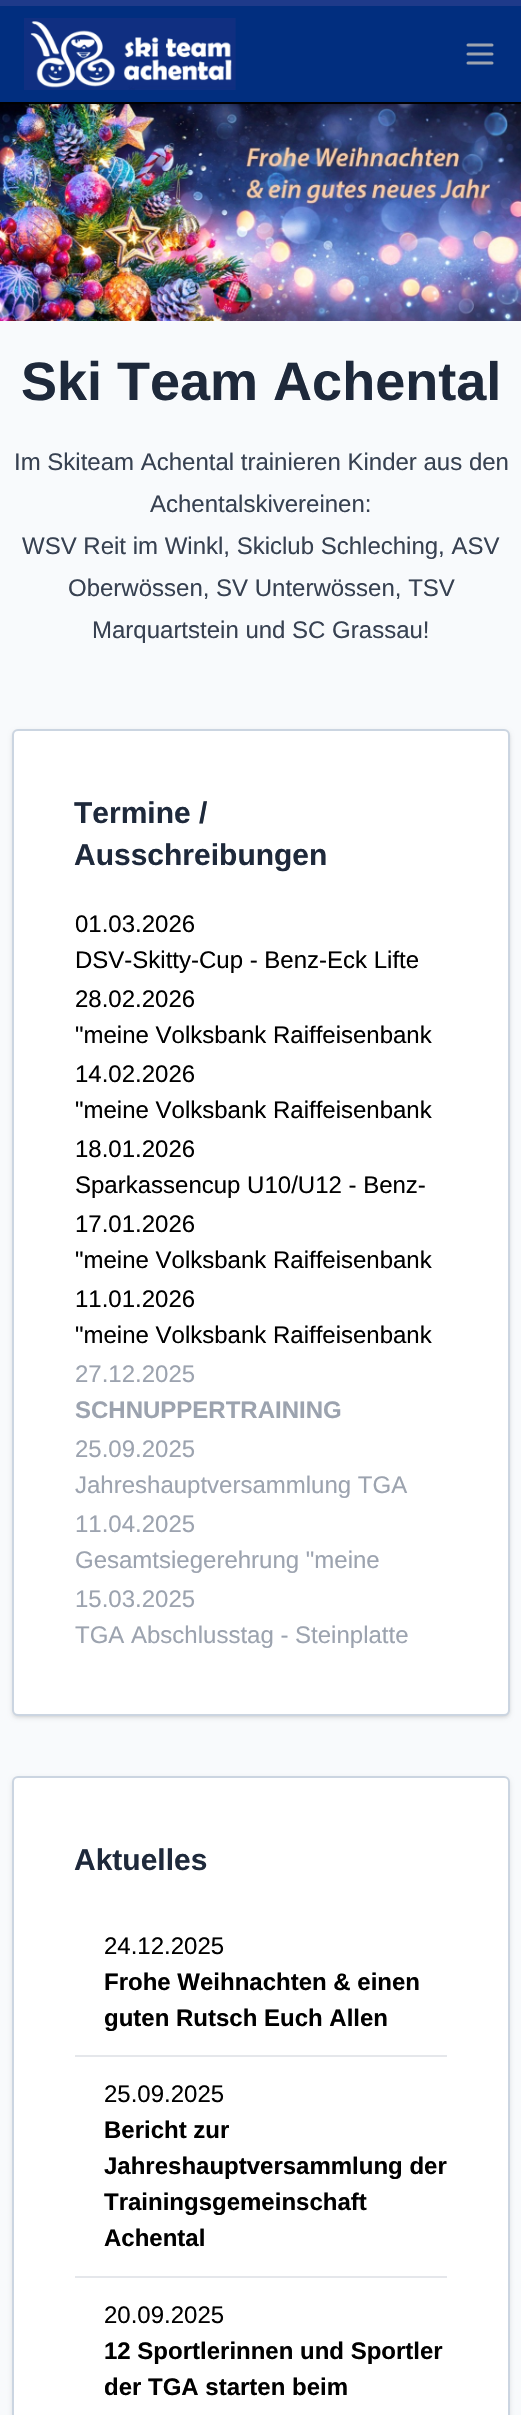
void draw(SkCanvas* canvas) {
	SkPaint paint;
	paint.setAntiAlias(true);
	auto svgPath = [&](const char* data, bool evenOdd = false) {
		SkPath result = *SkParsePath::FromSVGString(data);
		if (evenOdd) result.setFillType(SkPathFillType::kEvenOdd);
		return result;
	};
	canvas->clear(0xfff8fafc);
	canvas->drawImageRect(SkImages::DeferredFromEncodedData(SkData::MakeFromFileName("img2.png")), SkRect::MakeXYWH(0, 104, 521, 217), SkSamplingOptions());
	paint.setColor(0x1a000000);
	paint.setMaskFilter(SkMaskFilter::MakeBlur(kNormal_SkBlurStyle, 1.5));
	canvas->drawRect(SkRect::MakeXYWH(2, 3, 519, 101), paint);
	paint.setMaskFilter(nullptr);
	paint.setMaskFilter(SkMaskFilter::MakeBlur(kNormal_SkBlurStyle, 2));
	canvas->drawRect(SkRect::MakeXYWH(0, 2, 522, 103), paint);
	paint.setMaskFilter(nullptr);
	paint.setColor(0xff1e3a8a);
	canvas->drawRect(SkRect::MakeXYWH(0, 0, 521, 6), paint);
	paint.setColor(0xff012e7f);
	canvas->drawRect(SkRect::MakeXYWH(0, 6, 521, 96), paint);
	paint.setColor(0xff000000);
	canvas->drawRect(SkRect::MakeXYWH(0, 102, 521, 2), paint);
	canvas->drawImageRect(SkImages::DeferredFromEncodedData(SkData::MakeFromFileName("img1.png")), SkRect::MakeXYWH(24, 18, 212, 72), SkSamplingOptions());
	paint.setStroke(true);
	paint.setStrokeWidth(3);
	paint.setStrokeCap(SkPaint::kRound_Cap);
	paint.setStrokeJoin(SkPaint::kRound_Join);
	paint.setColor(0xff9ca3af);
	canvas->drawPath(svgPath("M468 45H492M468 54H492M468 63H492"), paint);
	SkFont f1(fontMgr->matchFamilyStyle("Liberation Sans", SkFontStyle::Bold()), 54);
	f1.setSubpixel(true);
	paint.setStroke(false);
	paint.setColor(0xff1e293b);
	canvas->drawString("Ski Team Achental", 21, 400, f1, paint);
	SkFont f2(fontMgr->matchFamilyStyle("Liberation Sans", SkFontStyle::Normal()), 24);
	f2.setSubpixel(true);
	paint.setColor(0xff374151);
	canvas->drawString("Im Skiteam Achental trainieren Kinder aus den", 14, 470, f2, paint);
	canvas->drawString("Achentalskivereinen:", 150, 512, f2, paint);
	canvas->drawString("WSV Reit im Winkl, Skiclub Schleching, ASV", 22, 554, f2, paint);
	canvas->drawString("Oberwössen, SV Unterwössen, TSV", 68, 596, f2, paint);
	canvas->drawString("Marquartstein und SC Grassau!", 92, 638, f2, paint);
	paint.setColor(0x1a000000);
	paint.setMaskFilter(SkMaskFilter::MakeBlur(kNormal_SkBlurStyle, 1.5));
	canvas->drawRoundRect(SkRect::MakeXYWH(14, 732, 495, 984), 5, 5, paint);
	paint.setMaskFilter(nullptr);
	paint.setMaskFilter(SkMaskFilter::MakeBlur(kNormal_SkBlurStyle, 2));
	canvas->drawRoundRect(SkRect::MakeXYWH(12, 731, 498, 987), 6, 6, paint);
	paint.setMaskFilter(nullptr);
	paint.setColor(0xffffffff);
	canvas->drawRoundRect(SkRect::MakeXYWH(13, 730, 496, 985), 5, 5, paint);
	paint.setStroke(true);
	paint.setStrokeWidth(2);
	paint.setStrokeCap(SkPaint::kButt_Cap);
	paint.setStrokeJoin(SkPaint::kMiter_Join);
	paint.setColor(0xffcbd5e1);
	canvas->drawRoundRect(SkRect::MakeXYWH(13, 730, 496, 985), 5, 5, paint);
	SkFont f3(fontMgr->matchFamilyStyle("Liberation Sans", SkFontStyle::Bold()), 30);
	f3.setSubpixel(true);
	paint.setStroke(false);
	paint.setColor(0xff1e293b);
	canvas->drawString("Termine /", 74, 823, f3, paint);
	canvas->drawString("Ausschreibungen", 74, 865, f3, paint);
	paint.setColor(0xff000000);
	canvas->drawString("01.03.2026", 75, 932, f2, paint);
	canvas->drawString("DSV-Skitty-Cup - Benz-Eck Lifte", 75, 968, f2, paint);
	canvas->drawString("28.02.2026", 75, 1007, f2, paint);
	canvas->drawString("\"meine Volksbank Raiffeisenbank", 75, 1043, f2, paint);
	canvas->drawString("14.02.2026", 75, 1082, f2, paint);
	canvas->drawString("\"meine Volksbank Raiffeisenbank", 75, 1118, f2, paint);
	canvas->drawString("18.01.2026", 75, 1157, f2, paint);
	canvas->drawString("Sparkassencup U10/U12 - Benz-", 75, 1193, f2, paint);
	canvas->drawString("17.01.2026", 75, 1232, f2, paint);
	canvas->drawString("\"meine Volksbank Raiffeisenbank", 75, 1268, f2, paint);
	canvas->drawString("11.01.2026", 75, 1307, f2, paint);
	canvas->drawString("\"meine Volksbank Raiffeisenbank", 75, 1343, f2, paint);
	paint.setColor(0xff9ca3af);
	canvas->drawString("27.12.2025", 75, 1382, f2, paint);
	SkFont f4(fontMgr->matchFamilyStyle("Liberation Sans", SkFontStyle::Bold()), 24);
	f4.setSubpixel(true);
	canvas->drawString("SCHNUPPERTRAINING", 75, 1418, f4, paint);
	canvas->drawString("25.09.2025", 75, 1457, f2, paint);
	canvas->drawString("Jahreshauptversammlung TGA", 75, 1493, f2, paint);
	canvas->drawString("11.04.2025", 75, 1532, f2, paint);
	canvas->drawString("Gesamtsiegerehrung \"meine", 75, 1568, f2, paint);
	canvas->drawString("15.03.2025", 75, 1607, f2, paint);
	canvas->drawString("TGA Abschlusstag - Steinplatte", 75, 1643, f2, paint);
	paint.setColor(0x1a000000);
	paint.setMaskFilter(SkMaskFilter::MakeBlur(kNormal_SkBlurStyle, 2));
	canvas->drawRoundRect(SkRect::MakeXYWH(12, 1778, 498, 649), 6, 6, paint);
	paint.setMaskFilter(nullptr);
	paint.setColor(0xffffffff);
	canvas->drawRoundRect(SkRect::MakeXYWH(13, 1777, 496, 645), 5, 5, paint);
	paint.setStroke(true);
	paint.setColor(0xffcbd5e1);
	canvas->drawRoundRect(SkRect::MakeXYWH(13, 1777, 496, 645), 5, 5, paint);
	paint.setStroke(false);
	paint.setColor(0xff1e293b);
	canvas->drawString("Aktuelles", 74, 1870, f3, paint);
	paint.setColor(0xff000000);
	canvas->drawString("24.12.2025", 104, 1954, f2, paint);
	canvas->drawString("Frohe Weihnachten & einen", 104, 1990, f4, paint);
	canvas->drawString("guten Rutsch Euch Allen", 104, 2026, f4, paint);
	paint.setColor(0xffe5e7eb);
	canvas->drawRect(SkRect::MakeXYWH(75, 2055, 372, 2), paint);
	paint.setColor(0xff000000);
	canvas->drawString("25.09.2025", 104, 2102, f2, paint);
	canvas->drawString("Bericht zur", 104, 2138, f4, paint);
	canvas->drawString("Jahreshauptversammlung der", 104, 2174, f4, paint);
	canvas->drawString("Trainingsgemeinschaft", 104, 2210, f4, paint);
	canvas->drawString("Achental", 104, 2246, f4, paint);
	paint.setColor(0xffe5e7eb);
	canvas->drawRect(SkRect::MakeXYWH(75, 2276, 372, 2), paint);
	paint.setColor(0xff000000);
	canvas->drawString("20.09.2025", 104, 2323, f2, paint);
	canvas->drawString("12 Sportlerinnen und Sportler", 104, 2359, f4, paint);
	canvas->drawString("der TGA starten beim", 104, 2395, f4, paint);
}
